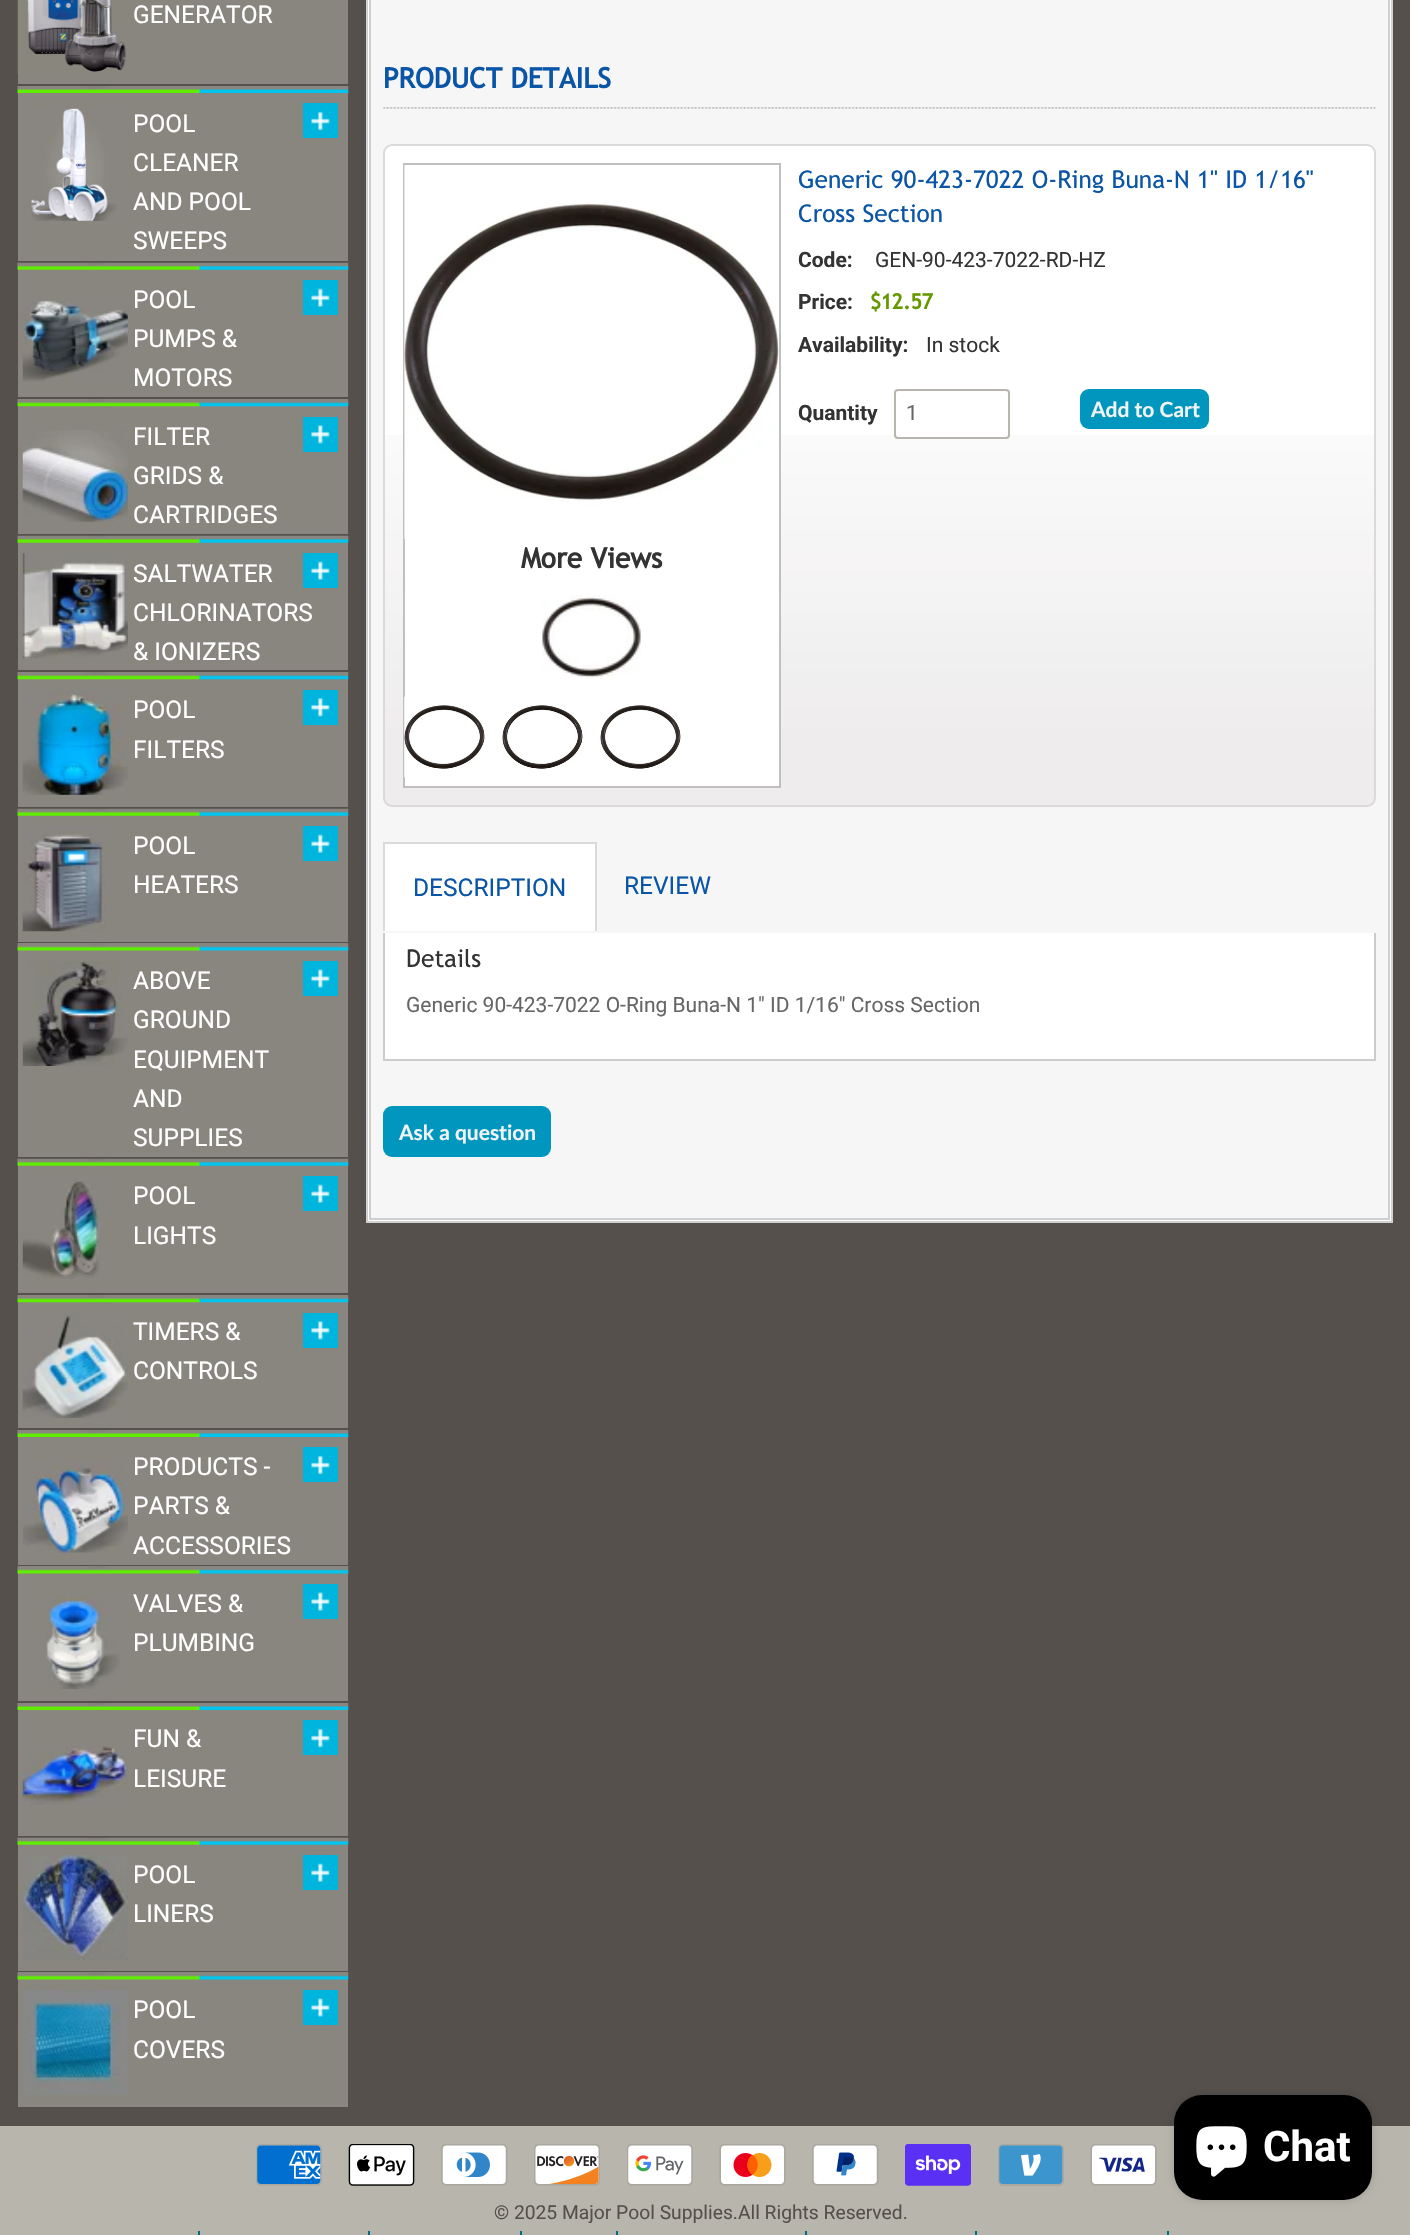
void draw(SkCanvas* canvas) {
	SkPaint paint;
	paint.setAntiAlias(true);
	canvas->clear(0xff55504c);
	paint.setColor(0xff898680);
	canvas->drawRect(SkRect::MakeXYWH(18, 0, 330, 84), paint);
	canvas->drawImageRect(SkImages::DeferredFromEncodedData(SkData::MakeFromFileName("img1.png")), SkRect::MakeXYWH(17, 0, 110, 74), SkSamplingOptions());
	SkFont f1(fontMgr->matchFamilyStyle("Roboto", SkFontStyle::Normal()), 24.5);
	f1.setSubpixel(true);
	paint.setColor(0xffffffff);
	canvas->drawString("GENERATOR", 133, 23, f1, paint);
	paint.setColor(0xff898680);
	canvas->drawRect(SkRect::MakeXYWH(18, 93, 330, 168), paint);
	canvas->drawImageRect(SkImages::DeferredFromEncodedData(SkData::MakeFromFileName("img2.png")), SkRect::MakeXYWH(17, 86, 332, 7), SkSamplingOptions());
	canvas->drawImageRect(SkImages::DeferredFromEncodedData(SkData::MakeFromFileName("img3.png")), SkRect::MakeXYWH(31, 108, 86, 113), SkSamplingOptions());
	paint.setColor(0xffffffff);
	canvas->drawString("POOL", 133, 132, f1, paint);
	canvas->drawString("CLEANER", 133, 171, f1, paint);
	canvas->drawString("AND POOL", 133, 210, f1, paint);
	canvas->drawString("SWEEPS", 133, 249, f1, paint);
	paint.setColor(0xff00b5dd);
	canvas->drawRect(SkRect::MakeXYWH(303, 103, 35, 35), paint);
	canvas->drawImageRect(SkImages::DeferredFromEncodedData(SkData::MakeFromFileName("img4.png")), SkRect::MakeXYWH(311, 111, 19, 20), SkSamplingOptions());
	paint.setColor(0xff898680);
	canvas->drawRect(SkRect::MakeXYWH(18, 269, 330, 128), paint);
	canvas->drawImageRect(SkImages::DeferredFromEncodedData(SkData::MakeFromFileName("img5.png")), SkRect::MakeXYWH(17, 262, 332, 8), SkSamplingOptions());
	canvas->drawImageRect(SkImages::DeferredFromEncodedData(SkData::MakeFromFileName("img6.png")), SkRect::MakeXYWH(22, 300, 106, 82), SkSamplingOptions());
	paint.setColor(0xffffffff);
	canvas->drawString("POOL", 133, 308, f1, paint);
	canvas->drawString("PUMPS &", 133, 347, f1, paint);
	canvas->drawString("MOTORS", 133, 386, f1, paint);
	paint.setColor(0xff00b5dd);
	canvas->drawRect(SkRect::MakeXYWH(303, 280, 35, 35), paint);
	canvas->drawImageRect(SkImages::DeferredFromEncodedData(SkData::MakeFromFileName("img7.png")), SkRect::MakeXYWH(311, 288, 19, 19), SkSamplingOptions());
	paint.setColor(0xff898680);
	canvas->drawRect(SkRect::MakeXYWH(18, 399, 330, 135), paint);
	canvas->drawImageRect(SkImages::DeferredFromEncodedData(SkData::MakeFromFileName("img8.png")), SkRect::MakeXYWH(17, 399, 332, 8), SkSamplingOptions());
	canvas->drawImageRect(SkImages::DeferredFromEncodedData(SkData::MakeFromFileName("img9.png")), SkRect::MakeXYWH(22, 430, 106, 92), SkSamplingOptions());
	paint.setColor(0xffffffff);
	canvas->drawString("FILTER", 133, 445, f1, paint);
	canvas->drawString("GRIDS &", 133, 484, f1, paint);
	canvas->drawString("CARTRIDGES", 133, 523, f1, paint);
	paint.setColor(0xff00b5dd);
	canvas->drawRect(SkRect::MakeXYWH(303, 417, 35, 35), paint);
	canvas->drawImageRect(SkImages::DeferredFromEncodedData(SkData::MakeFromFileName("img10.png")), SkRect::MakeXYWH(311, 425, 19, 19), SkSamplingOptions());
	paint.setColor(0xff898680);
	canvas->drawRect(SkRect::MakeXYWH(18, 542, 330, 128), paint);
	canvas->drawImageRect(SkImages::DeferredFromEncodedData(SkData::MakeFromFileName("img5.png")), SkRect::MakeXYWH(17, 535, 332, 8), SkSamplingOptions());
	canvas->drawImageRect(SkImages::DeferredFromEncodedData(SkData::MakeFromFileName("img11.png")), SkRect::MakeXYWH(22, 553, 106, 106), SkSamplingOptions());
	paint.setColor(0xffffffff);
	canvas->drawString("SALTWATER", 133, 582, f1, paint);
	canvas->drawString("CHLORINATORS", 133, 621, f1, paint);
	canvas->drawString("& IONIZERS", 133, 660, f1, paint);
	paint.setColor(0xff00b5dd);
	canvas->drawRect(SkRect::MakeXYWH(303, 553, 35, 35), paint);
	canvas->drawImageRect(SkImages::DeferredFromEncodedData(SkData::MakeFromFileName("img7.png")), SkRect::MakeXYWH(311, 561, 19, 19), SkSamplingOptions());
	paint.setColor(0xff898680);
	canvas->drawRect(SkRect::MakeXYWH(18, 672, 330, 135), paint);
	canvas->drawImageRect(SkImages::DeferredFromEncodedData(SkData::MakeFromFileName("img8.png")), SkRect::MakeXYWH(17, 672, 332, 8), SkSamplingOptions());
	canvas->drawImageRect(SkImages::DeferredFromEncodedData(SkData::MakeFromFileName("img12.png")), SkRect::MakeXYWH(22, 690, 106, 105), SkSamplingOptions());
	paint.setColor(0xffffffff);
	canvas->drawString("POOL", 133, 718, f1, paint);
	canvas->drawString("FILTERS", 133, 758, f1, paint);
	paint.setColor(0xff00b5dd);
	canvas->drawRect(SkRect::MakeXYWH(303, 690, 35, 35), paint);
	canvas->drawImageRect(SkImages::DeferredFromEncodedData(SkData::MakeFromFileName("img10.png")), SkRect::MakeXYWH(311, 698, 19, 19), SkSamplingOptions());
	paint.setColor(0xff898680);
	canvas->drawRect(SkRect::MakeXYWH(18, 815, 330, 127), paint);
	canvas->drawImageRect(SkImages::DeferredFromEncodedData(SkData::MakeFromFileName("img5.png")), SkRect::MakeXYWH(17, 808, 332, 8), SkSamplingOptions());
	canvas->drawImageRect(SkImages::DeferredFromEncodedData(SkData::MakeFromFileName("img13.png")), SkRect::MakeXYWH(22, 826, 84, 106), SkSamplingOptions());
	paint.setColor(0xffffffff);
	canvas->drawString("POOL", 133, 854, f1, paint);
	canvas->drawString("HEATERS", 133, 893, f1, paint);
	paint.setColor(0xff00b5dd);
	canvas->drawRect(SkRect::MakeXYWH(303, 826, 35, 35), paint);
	canvas->drawImageRect(SkImages::DeferredFromEncodedData(SkData::MakeFromFileName("img7.png")), SkRect::MakeXYWH(311, 834, 19, 19), SkSamplingOptions());
	paint.setColor(0xff898680);
	canvas->drawRect(SkRect::MakeXYWH(18, 943, 330, 214), paint);
	canvas->drawImageRect(SkImages::DeferredFromEncodedData(SkData::MakeFromFileName("img14.png")), SkRect::MakeXYWH(17, 943, 332, 8), SkSamplingOptions());
	canvas->drawImageRect(SkImages::DeferredFromEncodedData(SkData::MakeFromFileName("img15.png")), SkRect::MakeXYWH(22, 961, 106, 105), SkSamplingOptions());
	paint.setColor(0xffffffff);
	canvas->drawString("ABOVE", 133, 989, f1, paint);
	canvas->drawString("GROUND", 133, 1028, f1, paint);
	canvas->drawString("EQUIPMENT", 133, 1068, f1, paint);
	canvas->drawString("AND", 133, 1107, f1, paint);
	canvas->drawString("SUPPLIES", 133, 1146, f1, paint);
	paint.setColor(0xff00b5dd);
	canvas->drawRect(SkRect::MakeXYWH(303, 961, 35, 35), paint);
	canvas->drawImageRect(SkImages::DeferredFromEncodedData(SkData::MakeFromFileName("img16.png")), SkRect::MakeXYWH(311, 969, 19, 19), SkSamplingOptions());
	paint.setColor(0xff898680);
	canvas->drawRect(SkRect::MakeXYWH(18, 1165, 330, 128), paint);
	canvas->drawImageRect(SkImages::DeferredFromEncodedData(SkData::MakeFromFileName("img5.png")), SkRect::MakeXYWH(17, 1158, 332, 8), SkSamplingOptions());
	canvas->drawImageRect(SkImages::DeferredFromEncodedData(SkData::MakeFromFileName("img17.png")), SkRect::MakeXYWH(22, 1180, 78, 99), SkSamplingOptions());
	paint.setColor(0xffffffff);
	canvas->drawString("POOL", 133, 1204, f1, paint);
	canvas->drawString("LIGHTS", 133, 1244, f1, paint);
	paint.setColor(0xff00b5dd);
	canvas->drawRect(SkRect::MakeXYWH(303, 1176, 35, 35), paint);
	canvas->drawImageRect(SkImages::DeferredFromEncodedData(SkData::MakeFromFileName("img7.png")), SkRect::MakeXYWH(311, 1184, 19, 19), SkSamplingOptions());
	paint.setColor(0xff898680);
	canvas->drawRect(SkRect::MakeXYWH(18, 1295, 330, 133), paint);
	canvas->drawImageRect(SkImages::DeferredFromEncodedData(SkData::MakeFromFileName("img8.png")), SkRect::MakeXYWH(17, 1295, 332, 8), SkSamplingOptions());
	canvas->drawImageRect(SkImages::DeferredFromEncodedData(SkData::MakeFromFileName("img18.png")), SkRect::MakeXYWH(22, 1313, 106, 105), SkSamplingOptions());
	paint.setColor(0xffffffff);
	canvas->drawString("TIMERS &", 133, 1340, f1, paint);
	canvas->drawString("CONTROLS", 133, 1379, f1, paint);
	paint.setColor(0xff00b5dd);
	canvas->drawRect(SkRect::MakeXYWH(303, 1313, 35, 35), paint);
	canvas->drawImageRect(SkImages::DeferredFromEncodedData(SkData::MakeFromFileName("img10.png")), SkRect::MakeXYWH(311, 1321, 19, 19), SkSamplingOptions());
	paint.setColor(0xff898680);
	canvas->drawRect(SkRect::MakeXYWH(18, 1437, 330, 128), paint);
	canvas->drawImageRect(SkImages::DeferredFromEncodedData(SkData::MakeFromFileName("img2.png")), SkRect::MakeXYWH(17, 1430, 332, 7), SkSamplingOptions());
	canvas->drawImageRect(SkImages::DeferredFromEncodedData(SkData::MakeFromFileName("img19.png")), SkRect::MakeXYWH(23, 1462, 105, 91), SkSamplingOptions());
	paint.setColor(0xffffffff);
	canvas->drawString("PRODUCTS -", 133, 1475, f1, paint);
	canvas->drawString("PARTS &", 133, 1514, f1, paint);
	canvas->drawString("ACCESSORIES", 133, 1554, f1, paint);
	paint.setColor(0xff00b5dd);
	canvas->drawRect(SkRect::MakeXYWH(303, 1447, 35, 35), paint);
	canvas->drawImageRect(SkImages::DeferredFromEncodedData(SkData::MakeFromFileName("img4.png")), SkRect::MakeXYWH(311, 1455, 19, 20), SkSamplingOptions());
	paint.setColor(0xff898680);
	canvas->drawRect(SkRect::MakeXYWH(18, 1566, 330, 135), paint);
	canvas->drawImageRect(SkImages::DeferredFromEncodedData(SkData::MakeFromFileName("img14.png")), SkRect::MakeXYWH(17, 1566, 332, 8), SkSamplingOptions());
	canvas->drawImageRect(SkImages::DeferredFromEncodedData(SkData::MakeFromFileName("img20.png")), SkRect::MakeXYWH(46, 1597, 74, 92), SkSamplingOptions());
	paint.setColor(0xffffffff);
	canvas->drawString("VALVES &", 133, 1612, f1, paint);
	canvas->drawString("PLUMBING", 133, 1651, f1, paint);
	paint.setColor(0xff00b5dd);
	canvas->drawRect(SkRect::MakeXYWH(303, 1584, 35, 35), paint);
	canvas->drawImageRect(SkImages::DeferredFromEncodedData(SkData::MakeFromFileName("img16.png")), SkRect::MakeXYWH(311, 1592, 19, 19), SkSamplingOptions());
	paint.setColor(0xff898680);
	canvas->drawRect(SkRect::MakeXYWH(18, 1710, 330, 126), paint);
	canvas->drawImageRect(SkImages::DeferredFromEncodedData(SkData::MakeFromFileName("img2.png")), SkRect::MakeXYWH(17, 1703, 332, 7), SkSamplingOptions());
	canvas->drawImageRect(SkImages::DeferredFromEncodedData(SkData::MakeFromFileName("img21.png")), SkRect::MakeXYWH(22, 1746, 106, 59), SkSamplingOptions());
	paint.setColor(0xffffffff);
	canvas->drawString("FUN &", 133, 1747, f1, paint);
	canvas->drawString("LEISURE", 133, 1787, f1, paint);
	paint.setColor(0xff00b5dd);
	canvas->drawRect(SkRect::MakeXYWH(303, 1720, 35, 35), paint);
	canvas->drawImageRect(SkImages::DeferredFromEncodedData(SkData::MakeFromFileName("img4.png")), SkRect::MakeXYWH(311, 1728, 19, 20), SkSamplingOptions());
	paint.setColor(0xff898680);
	canvas->drawRect(SkRect::MakeXYWH(18, 1844, 330, 127), paint);
	canvas->drawImageRect(SkImages::DeferredFromEncodedData(SkData::MakeFromFileName("img5.png")), SkRect::MakeXYWH(17, 1837, 332, 8), SkSamplingOptions());
	canvas->drawImageRect(SkImages::DeferredFromEncodedData(SkData::MakeFromFileName("img22.png")), SkRect::MakeXYWH(23, 1855, 105, 105), SkSamplingOptions());
	paint.setColor(0xffffffff);
	canvas->drawString("POOL", 133, 1883, f1, paint);
	canvas->drawString("LINERS", 133, 1922, f1, paint);
	paint.setColor(0xff00b5dd);
	canvas->drawRect(SkRect::MakeXYWH(303, 1855, 35, 35), paint);
	canvas->drawImageRect(SkImages::DeferredFromEncodedData(SkData::MakeFromFileName("img7.png")), SkRect::MakeXYWH(311, 1863, 19, 19), SkSamplingOptions());
	paint.setColor(0xff898680);
	canvas->drawRect(SkRect::MakeXYWH(18, 1972, 330, 135), paint);
	canvas->drawImageRect(SkImages::DeferredFromEncodedData(SkData::MakeFromFileName("img14.png")), SkRect::MakeXYWH(17, 1972, 332, 8), SkSamplingOptions());
	canvas->drawImageRect(SkImages::DeferredFromEncodedData(SkData::MakeFromFileName("img23.png")), SkRect::MakeXYWH(23, 1990, 105, 105), SkSamplingOptions());
	paint.setColor(0xffffffff);
	canvas->drawString("POOL", 133, 2018, f1, paint);
	canvas->drawString("COVERS", 133, 2058, f1, paint);
	paint.setColor(0xff00b5dd);
	canvas->drawRect(SkRect::MakeXYWH(303, 1990, 35, 35), paint);
	canvas->drawImageRect(SkImages::DeferredFromEncodedData(SkData::MakeFromFileName("img16.png")), SkRect::MakeXYWH(311, 1998, 19, 19), SkSamplingOptions());
	paint.setColor(0xffffffff);
	canvas->drawRect(SkRect::MakeXYWH(367, -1, 1025, 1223), paint);
	paint.setStroke(true);
	paint.setStrokeWidth(2);
	paint.setColor(0xffd1d1d1);
	canvas->drawRect(SkRect::MakeXYWH(367, -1, 1025, 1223), paint);
	paint.setStroke(false);
	paint.setColor(0xfff6f6f6);
	canvas->drawRect(SkRect::MakeXYWH(370, -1, 1019, 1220), paint);
	paint.setStroke(true);
	paint.setColor(0xffcfcfcf);
	canvas->drawRect(SkRect::MakeXYWH(370, -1, 1019, 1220), paint);
	canvas->drawImageRect(SkImages::DeferredFromEncodedData(SkData::MakeFromFileName("img24.png")), SkRect::MakeXYWH(383, 107, 993, 2), SkSamplingOptions());
	SkFont f2(fontMgr->matchFamilyStyle("Trebuchet MS", SkFontStyle::Bold()), 28);
	f2.setSubpixel(true);
	paint.setStroke(false);
	paint.setColor(0xff0a55a6);
	canvas->drawString("PRODUCT DETAILS", 383, 88, f2, paint);
	paint.setColor(0xffffffff);
	canvas->drawRoundRect(SkRect::MakeXYWH(383, 144, 993, 663), 9, 9, paint);
	canvas->drawImageRect(SkImages::DeferredFromEncodedData(SkData::MakeFromFileName("img25.png")), SkRect::MakeXYWH(383, 435, 993, 371), SkSamplingOptions());
	paint.setStroke(true);
	paint.setColor(0xffdadada);
	canvas->drawRoundRect(SkRect::MakeXYWH(384, 145, 991, 661), 8, 8, paint);
	SkFont f3(fontMgr->matchFamilyStyle("Trebuchet MS", SkFontStyle::Normal()), 24.5);
	f3.setSubpixel(true);
	paint.setStroke(false);
	paint.setColor(0xff0a55a6);
	canvas->drawString("Generic 90-423-7022 O-Ring Buna-N 1\" ID 1/16\"", 798, 188, f3, paint);
	canvas->drawString("Cross Section", 798, 222, f3, paint);
	SkFont f4(fontMgr->matchFamilyStyle("Roboto", SkFontStyle::Bold()), 21);
	f4.setSubpixel(true);
	paint.setColor(0xff333333);
	canvas->drawString("Code:", 798, 267, f4, paint);
	SkFont f5(fontMgr->matchFamilyStyle("Roboto", SkFontStyle::Normal()), 21);
	f5.setSubpixel(true);
	canvas->drawString("GEN-90-423-7022-RD-HZ", 875, 267, f5, paint);
	canvas->drawString("Price:", 798, 309, f4, paint);
	SkFont f6(fontMgr->matchFamilyStyle("Trebuchet MS", SkFontStyle::Bold()), 21);
	f6.setSubpixel(true);
	paint.setColor(0xff669900);
	canvas->drawString("$12.57", 870, 309, f6, paint);
	paint.setColor(0xff333333);
	canvas->drawString("Availability:", 798, 352, f4, paint);
	canvas->drawString("In stock", 926, 352, f5, paint);
	canvas->drawString("Quantity", 798, 420, f4, paint);
	paint.setColor(0xffffffff);
	canvas->drawRoundRect(SkRect::MakeXYWH(895, 390, 114, 48), 3, 3, paint);
	paint.setStroke(true);
	paint.setColor(0xffb8b5ac);
	canvas->drawRoundRect(SkRect::MakeXYWH(895, 390, 114, 48), 3, 3, paint);
	paint.setStroke(false);
	paint.setColor(0xff666666);
	canvas->drawString("1", 906, 420, f5, paint);
	paint.setColor(0xff0096bd);
	canvas->drawRoundRect(SkRect::MakeXYWH(1080, 389, 129, 40), 9, 9, paint);
	SkFont f7(fontMgr->matchFamilyStyle("Lato", SkFontStyle::Bold()), 21);
	f7.setSubpixel(true);
	paint.setColor(0xfff3f3f3);
	canvas->drawString("Add to Cart", 1091, 417, f7, paint);
	paint.setColor(0xffffffff);
	canvas->drawRect(SkRect::MakeXYWH(405, 435, 374, 351), paint);
	paint.setStroke(true);
	paint.setColor(0xffc0c0c0);
	canvas->drawRect(SkRect::MakeXYWH(404, 164, 376, 623), paint);
	canvas->drawImageRect(SkImages::DeferredFromEncodedData(SkData::MakeFromFileName("img26.png")), SkRect::MakeXYWH(404, 165, 375, 374), SkSamplingOptions());
	paint.setStroke(false);
	paint.setColor(0xff333333);
	canvas->drawString("More Views", 521, 568, f2, paint);
	canvas->drawImageRect(SkImages::DeferredFromEncodedData(SkData::MakeFromFileName("img27.png")), SkRect::MakeXYWH(542, 595, 99, 84), SkSamplingOptions());
	canvas->drawImageRect(SkImages::DeferredFromEncodedData(SkData::MakeFromFileName("img28.png")), SkRect::MakeXYWH(404, 696, 81, 82), SkSamplingOptions());
	canvas->drawImageRect(SkImages::DeferredFromEncodedData(SkData::MakeFromFileName("img29.png")), SkRect::MakeXYWH(502, 705, 81, 65), SkSamplingOptions());
	canvas->drawImageRect(SkImages::DeferredFromEncodedData(SkData::MakeFromFileName("img30.png")), SkRect::MakeXYWH(600, 705, 81, 64), SkSamplingOptions());
	paint.setColor(0xffffffff);
	canvas->drawRect(SkRect::MakeXYWH(385, 844, 210, 87), paint);
	paint.setColor(0xffdadada);
	canvas->drawRect(SkRect::MakeXYWH(383, 842, 214, 2), paint);
	canvas->drawRect(SkRect::MakeXYWH(595, 842, 2, 89), paint);
	canvas->drawRect(SkRect::MakeXYWH(383, 842, 2, 89), paint);
	paint.setColor(0xff0a55a6);
	canvas->drawString("DESCRIPTION", 413, 896, f1, paint);
	canvas->drawString("REVIEW", 624, 894, f1, paint);
	paint.setColor(0xffffffff);
	canvas->drawRect(SkRect::MakeXYWH(385, 933, 989, 126), paint);
	paint.setColor(0xffcccccc);
	canvas->drawRect(SkRect::MakeXYWH(1374, 933, 2, 128), paint);
	canvas->drawRect(SkRect::MakeXYWH(383, 1059, 993, 2), paint);
	canvas->drawRect(SkRect::MakeXYWH(383, 933, 2, 128), paint);
	paint.setColor(0xff333333);
	canvas->drawString("Details", 406, 967, f3, paint);
	paint.setColor(0xff666666);
	canvas->drawString("Generic 90-423-7022 O-Ring Buna-N 1\" ID 1/16\" Cross Section", 406, 1012, f5, paint);
	paint.setColor(0xff0096bd);
	canvas->drawRoundRect(SkRect::MakeXYWH(383, 1106, 168, 51), 9, 9, paint);
	paint.setColor(0xfff3f3f3);
	canvas->drawString("Ask a question", 399, 1140, f7, paint);
	paint.setColor(0xffb8b5ac);
	canvas->drawRect(SkRect::MakeXYWH(0, 2126, 1410, 109), paint);
	paint.setColor(0x26000000);
	paint.setMaskFilter(SkMaskFilter::MakeBlur(kNormal_SkBlurStyle, 4.5));
	canvas->drawRoundRect(SkRect::MakeXYWH(1174, 2095, 198, 105), 28, 28, paint);
	paint.setMaskFilter(nullptr);
	paint.setColor(0xff000000);
	canvas->drawRoundRect(SkRect::MakeXYWH(1174, 2095, 198, 105), 28, 28, paint);
	canvas->drawImageRect(SkImages::DeferredFromEncodedData(SkData::MakeFromFileName("img31.png")), SkRect::MakeXYWH(1196, 2126, 51, 51), SkSamplingOptions());
	SkFont f8(fontMgr->matchFamilyStyle("Roboto", SkFontStyle::Bold()), 42);
	f8.setSubpixel(true);
	paint.setColor(0xffffffff);
	canvas->drawString("Chat", 1263, 2161, f8, paint);
	canvas->drawImageRect(SkImages::DeferredFromEncodedData(SkData::MakeFromFileName("img32.png")), SkRect::MakeXYWH(256, 2144, 66, 42), SkSamplingOptions());
	canvas->drawImageRect(SkImages::DeferredFromEncodedData(SkData::MakeFromFileName("img33.png")), SkRect::MakeXYWH(348, 2144, 67, 42), SkSamplingOptions());
	canvas->drawImageRect(SkImages::DeferredFromEncodedData(SkData::MakeFromFileName("img34.png")), SkRect::MakeXYWH(441, 2144, 67, 42), SkSamplingOptions());
	canvas->drawImageRect(SkImages::DeferredFromEncodedData(SkData::MakeFromFileName("img35.png")), SkRect::MakeXYWH(534, 2144, 66, 42), SkSamplingOptions());
	canvas->drawImageRect(SkImages::DeferredFromEncodedData(SkData::MakeFromFileName("img36.png")), SkRect::MakeXYWH(627, 2144, 66, 42), SkSamplingOptions());
	canvas->drawImageRect(SkImages::DeferredFromEncodedData(SkData::MakeFromFileName("img37.png")), SkRect::MakeXYWH(719, 2144, 67, 42), SkSamplingOptions());
	canvas->drawImageRect(SkImages::DeferredFromEncodedData(SkData::MakeFromFileName("img38.png")), SkRect::MakeXYWH(812, 2144, 67, 42), SkSamplingOptions());
	canvas->drawImageRect(SkImages::DeferredFromEncodedData(SkData::MakeFromFileName("img39.png")), SkRect::MakeXYWH(905, 2144, 66, 42), SkSamplingOptions());
	canvas->drawImageRect(SkImages::DeferredFromEncodedData(SkData::MakeFromFileName("img40.png")), SkRect::MakeXYWH(998, 2144, 66, 42), SkSamplingOptions());
	canvas->drawImageRect(SkImages::DeferredFromEncodedData(SkData::MakeFromFileName("img41.png")), SkRect::MakeXYWH(1090, 2144, 67, 42), SkSamplingOptions());
	SkFont f9(fontMgr->matchFamilyStyle("Roboto", SkFontStyle::Normal()), 19.25);
	f9.setSubpixel(true);
	paint.setColor(0xff55504c);
	canvas->drawString("© 2025 Major Pool Supplies.All Rights Reserved.", 494, 2219, f9, paint);
	paint.setColor(0xff006c87);
	canvas->drawRect(SkRect::MakeXYWH(198, 2231, 2, 4), paint);
	canvas->drawRect(SkRect::MakeXYWH(368, 2231, 2, 4), paint);
	canvas->drawRect(SkRect::MakeXYWH(520, 2231, 2, 4), paint);
	canvas->drawRect(SkRect::MakeXYWH(616, 2231, 2, 4), paint);
	canvas->drawRect(SkRect::MakeXYWH(805, 2231, 2, 4), paint);
	canvas->drawRect(SkRect::MakeXYWH(975, 2231, 2, 4), paint);
	canvas->drawRect(SkRect::MakeXYWH(1167, 2231, 2, 4), paint);
}
